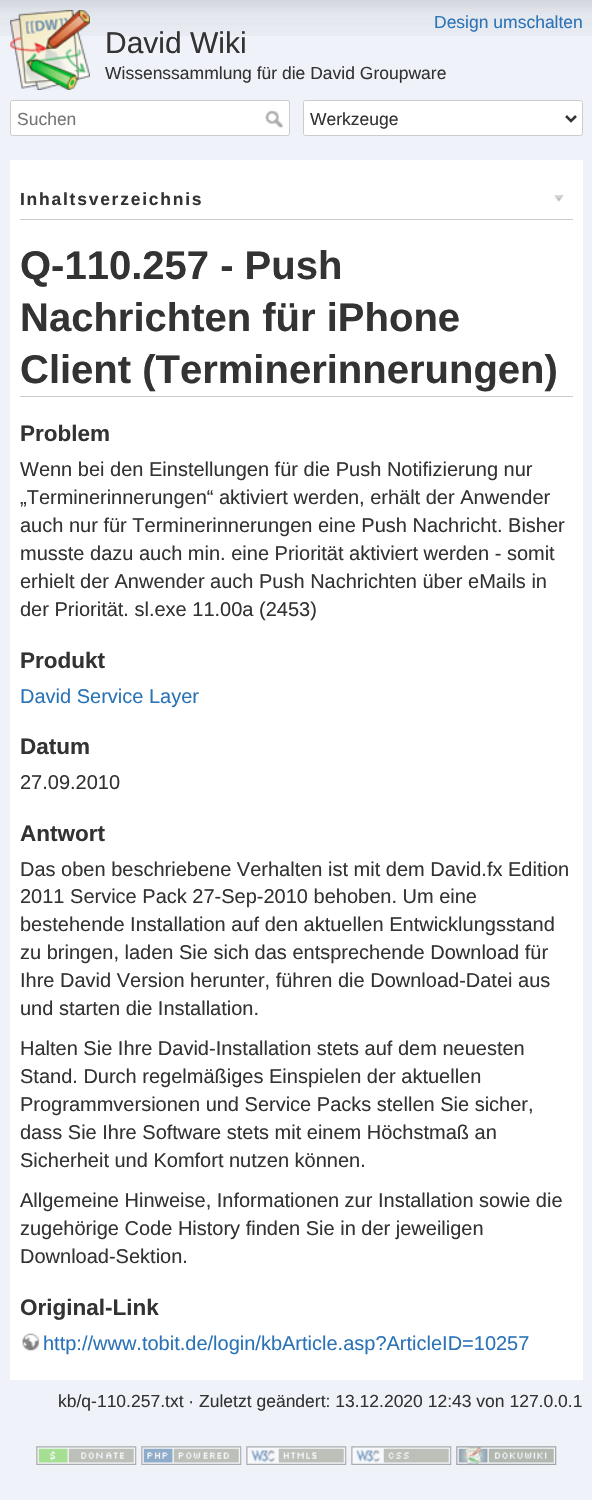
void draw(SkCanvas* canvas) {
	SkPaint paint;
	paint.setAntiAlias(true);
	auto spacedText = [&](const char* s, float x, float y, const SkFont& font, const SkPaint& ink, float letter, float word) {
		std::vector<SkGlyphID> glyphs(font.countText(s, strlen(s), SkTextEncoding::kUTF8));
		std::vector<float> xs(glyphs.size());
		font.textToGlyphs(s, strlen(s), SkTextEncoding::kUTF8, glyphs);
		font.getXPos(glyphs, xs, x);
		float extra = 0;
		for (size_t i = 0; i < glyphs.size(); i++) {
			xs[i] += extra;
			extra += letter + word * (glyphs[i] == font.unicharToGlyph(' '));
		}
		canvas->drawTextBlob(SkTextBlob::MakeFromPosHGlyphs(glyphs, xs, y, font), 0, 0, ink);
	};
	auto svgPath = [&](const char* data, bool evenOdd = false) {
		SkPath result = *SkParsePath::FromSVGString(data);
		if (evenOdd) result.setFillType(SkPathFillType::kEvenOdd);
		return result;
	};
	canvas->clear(0xffeff2f8);
	canvas->drawImageRect(SkImages::DeferredFromEncodedData(SkData::MakeFromFileName("img1.png")), SkRect::MakeXYWH(0, 0, 592, 36), SkSamplingOptions());
	SkFont f1(fontMgr->matchFamilyStyle("Liberation Sans", SkFontStyle::Normal()), 17.5);
	f1.setSubpixel(true);
	paint.setColor(0xff2b73b7);
	canvas->drawString("Design umschalten", 434, 28, f1, paint);
	canvas->drawImageRect(SkImages::DeferredFromEncodedData(SkData::MakeFromFileName("img2.png")), SkRect::MakeXYWH(10, 10, 80, 80), SkSamplingOptions());
	SkFont f2(fontMgr->matchFamilyStyle("Liberation Sans", SkFontStyle::Normal()), 30);
	f2.setSubpixel(true);
	paint.setColor(0xff333333);
	canvas->drawString("David Wiki", 105, 53, f2, paint);
	canvas->drawString("Wissenssammlung für die David Groupware", 105, 79, f1, paint);
	paint.setColor(0xffffffff);
	canvas->drawRoundRect(SkRect::MakeXYWH(10.5, 100.5, 279, 35), 2, 2, paint);
	paint.setStroke(true);
	paint.setStrokeWidth(1);
	paint.setColor(0xffcccccc);
	canvas->drawRoundRect(SkRect::MakeXYWH(10.5, 100.5, 279, 35), 2, 2, paint);
	paint.setStroke(false);
	paint.setColor(0xff757575);
	canvas->drawString("Suchen", 17, 125, f1, paint);
	canvas->drawImageRect(SkImages::DeferredFromEncodedData(SkData::MakeFromFileName("img3.png")), SkRect::MakeXYWH(265, 110, 18, 18), SkSamplingOptions());
	paint.setColor(0xffffffff);
	canvas->drawRoundRect(SkRect::MakeXYWH(303.5, 100.5, 279, 35), 2, 2, paint);
	paint.setStroke(true);
	paint.setColor(0xffcccccc);
	canvas->drawRoundRect(SkRect::MakeXYWH(303.5, 100.5, 279, 35), 2, 2, paint);
	paint.setStrokeWidth(2.5);
	paint.setColor(0xff333333);
	canvas->drawPath(svgPath("M566 116L571 121L576 116"), paint);
	paint.setStroke(false);
	canvas->drawString("Werkzeuge", 310, 125, f1, paint);
	paint.setColor(0xffffffff);
	canvas->drawRect(SkRect::MakeXYWH(10, 160, 573, 1220), paint);
	paint.setColor(0xffcccccc);
	canvas->drawRect(SkRect::MakeXYWH(20, 219, 553, 1), paint);
	SkFont f3(fontMgr->matchFamilyStyle("Liberation Sans", SkFontStyle::Bold()), 17.5);
	f3.setSubpixel(true);
	paint.setColor(0xff333333);
	spacedText("Inhaltsverzeichnis", 20, 205, f3, paint, 1.75, 0);
	canvas->drawImageRect(SkImages::DeferredFromEncodedData(SkData::MakeFromFileName("img4.png")), SkRect::MakeXYWH(554, 195, 10, 7), SkSamplingOptions());
	paint.setColor(0xffcccccc);
	canvas->drawRect(SkRect::MakeXYWH(20, 396, 553, 1), paint);
	SkFont f4(fontMgr->matchFamilyStyle("Liberation Sans", SkFontStyle::Bold()), 40);
	f4.setSubpixel(true);
	paint.setColor(0xff333333);
	canvas->drawString("Q-110.257 - Push", 20, 279, f4, paint);
	canvas->drawString("Nachrichten für iPhone", 20, 331, f4, paint);
	canvas->drawString("Client (Terminerinnerungen)", 20, 383, f4, paint);
	SkFont f5(fontMgr->matchFamilyStyle("Liberation Sans", SkFontStyle::Bold()), 22.5);
	f5.setSubpixel(true);
	canvas->drawString("Problem", 20, 441, f5, paint);
	SkFont f6(fontMgr->matchFamilyStyle("Liberation Sans", SkFontStyle::Normal()), 20);
	f6.setSubpixel(true);
	canvas->drawString("Wenn bei den Einstellungen für die Push Notifizierung nur", 20, 476, f6, paint);
	canvas->drawString("„Terminerinnerungen“ aktiviert werden, erhält der Anwender", 20, 504, f6, paint);
	canvas->drawString("auch nur für Terminerinnerungen eine Push Nachricht. Bisher", 20, 532, f6, paint);
	canvas->drawString("musste dazu auch min. eine Priorität aktiviert werden - somit", 20, 560, f6, paint);
	canvas->drawString("erhielt der Anwender auch Push Nachrichten über eMails in", 20, 588, f6, paint);
	canvas->drawString("der Priorität. sl.exe 11.00a (2453)", 20, 616, f6, paint);
	canvas->drawString("Produkt", 20, 668, f5, paint);
	paint.setColor(0xff2b73b7);
	canvas->drawString("David Service Layer", 20, 703, f6, paint);
	paint.setColor(0xff333333);
	canvas->drawString("Datum", 20, 754, f5, paint);
	canvas->drawString("27.09.2010", 20, 789, f6, paint);
	canvas->drawString("Antwort", 20, 841, f5, paint);
	canvas->drawString("Das oben beschriebene Verhalten ist mit dem David.fx Edition", 20, 876, f6, paint);
	canvas->drawString("2011 Service Pack 27-Sep-2010 behoben. Um eine", 20, 903, f6, paint);
	canvas->drawString("bestehende Installation auf den aktuellen Entwicklungsstand", 20, 931, f6, paint);
	canvas->drawString("zu bringen, laden Sie sich das entsprechende Download für", 20, 959, f6, paint);
	canvas->drawString("Ihre David Version herunter, führen die Download-Datei aus", 20, 987, f6, paint);
	canvas->drawString("und starten die Installation.", 20, 1015, f6, paint);
	canvas->drawString("Halten Sie Ihre David-Installation stets auf dem neuesten", 20, 1055, f6, paint);
	canvas->drawString("Stand. Durch regelmäßiges Einspielen der aktuellen", 20, 1083, f6, paint);
	canvas->drawString("Programmversionen und Service Packs stellen Sie sicher,", 20, 1111, f6, paint);
	canvas->drawString("dass Sie Ihre Software stets mit einem Höchstmaß an", 20, 1139, f6, paint);
	canvas->drawString("Sicherheit und Komfort nutzen können.", 20, 1167, f6, paint);
	canvas->drawString("Allgemeine Hinweise, Informationen zur Installation sowie die", 20, 1207, f6, paint);
	canvas->drawString("zugehörige Code History finden Sie in der jeweiligen", 20, 1235, f6, paint);
	canvas->drawString("Download-Sektion.", 20, 1263, f6, paint);
	canvas->drawString("Original-Link", 20, 1315, f5, paint);
	canvas->drawImageRect(SkImages::DeferredFromEncodedData(SkData::MakeFromFileName("img5.png")), SkRect::MakeXYWH(22, 1333, 18, 19), SkSamplingOptions());
	paint.setColor(0xff2b73b7);
	canvas->drawString("http://www.tobit.de/login/kbArticle.asp?ArticleID=10257", 43, 1350, f6, paint);
	paint.setColor(0xff333333);
	canvas->drawString("kb/q-110.257.txt · Zuletzt geändert: 13.12.2020 12:43 von 127.0.0.1", 58, 1407, f1, paint);
	canvas->drawImageRect(SkImages::DeferredFromEncodedData(SkData::MakeFromFileName("img6.png")), SkRect::MakeXYWH(36, 1446, 101, 19), SkSamplingOptions());
	canvas->drawImageRect(SkImages::DeferredFromEncodedData(SkData::MakeFromFileName("img7.png")), SkRect::MakeXYWH(141, 1446, 101, 19), SkSamplingOptions());
	canvas->drawImageRect(SkImages::DeferredFromEncodedData(SkData::MakeFromFileName("img8.png")), SkRect::MakeXYWH(246, 1446, 101, 19), SkSamplingOptions());
	canvas->drawImageRect(SkImages::DeferredFromEncodedData(SkData::MakeFromFileName("img9.png")), SkRect::MakeXYWH(351, 1446, 101, 19), SkSamplingOptions());
	canvas->drawImageRect(SkImages::DeferredFromEncodedData(SkData::MakeFromFileName("img10.png")), SkRect::MakeXYWH(456, 1446, 101, 19), SkSamplingOptions());
}
